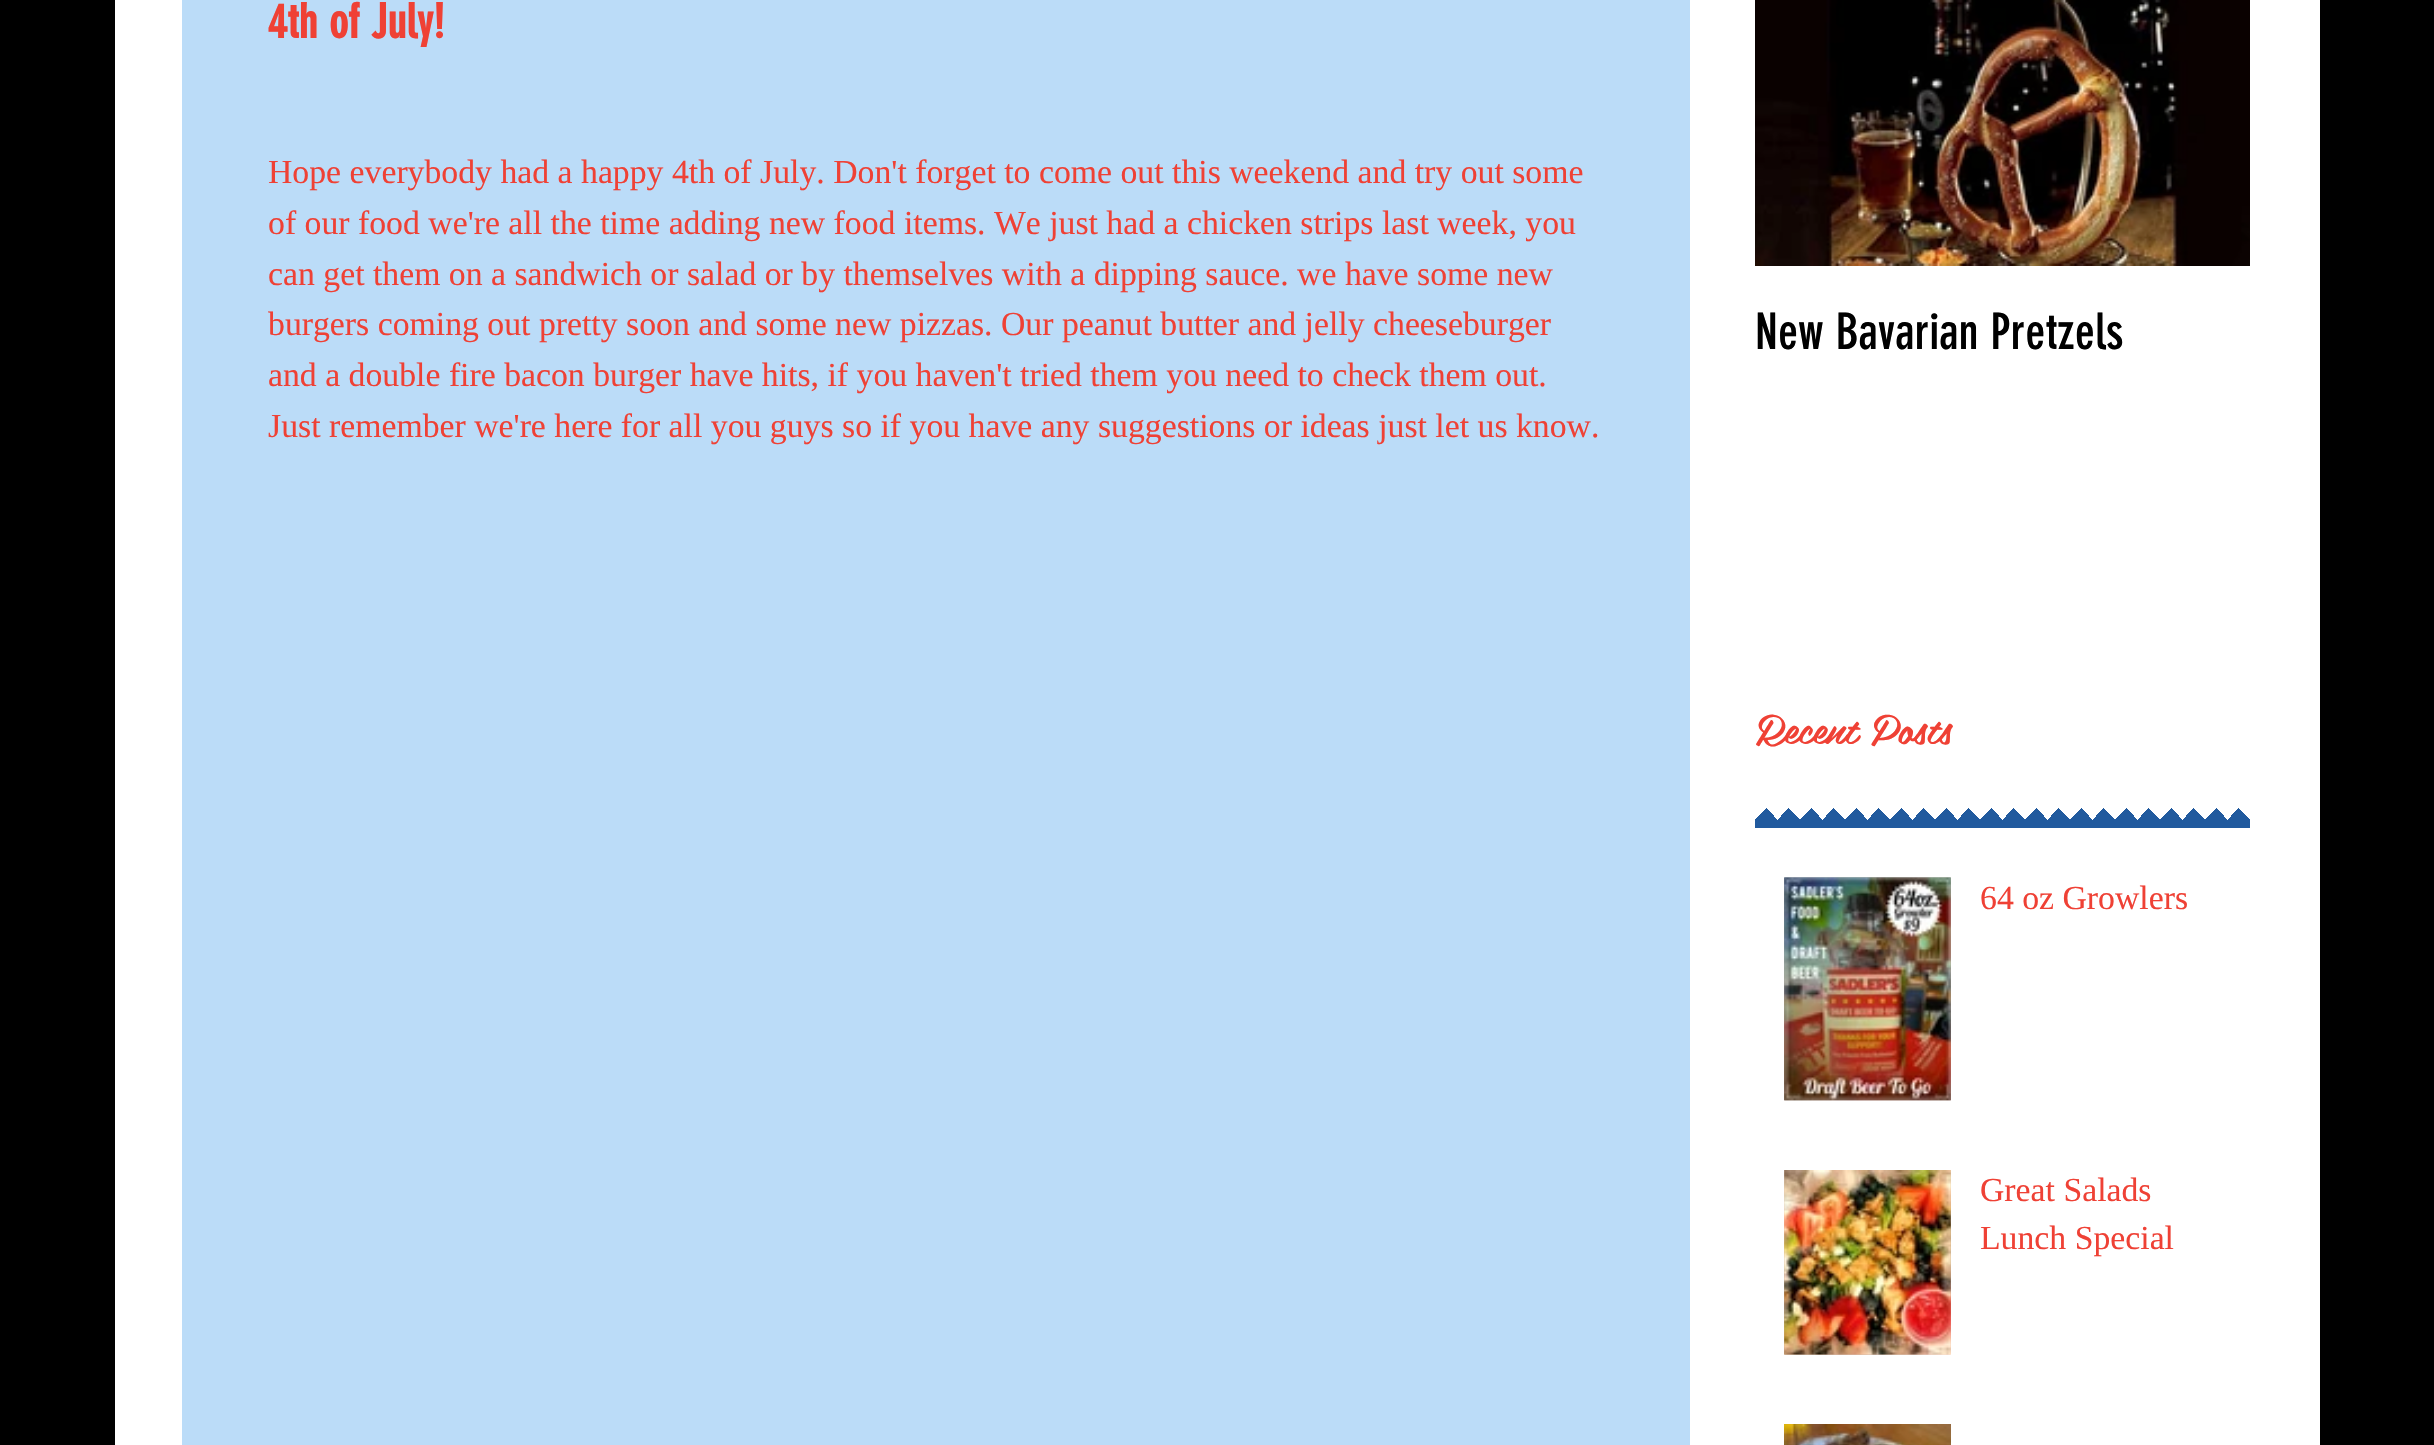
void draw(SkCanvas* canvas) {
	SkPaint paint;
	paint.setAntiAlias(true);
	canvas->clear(0xff000000);
	paint.setColor(0xffffffff);
	canvas->drawRect(SkRect::MakeXYWH(115, 0, 2205, 1445), paint);
	paint.setColor(0xffbbdcf8);
	canvas->drawRect(SkRect::MakeXYWH(182, 0, 1508, 1445), paint);
	SkFont f1(fontMgr->matchFamilyStyle("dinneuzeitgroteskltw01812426", SkFontStyle::Bold()), 47);
	f1.setSubpixel(true);
	paint.setColor(0xffef4135);
	canvas->drawString("4th of July!", 268, 38, f1, paint);
	SkFont f2(fontMgr->matchFamilyStyle("Liberation Serif", SkFontStyle::Normal()), 33.75);
	f2.setSubpixel(true);
	canvas->drawString("Hope everybody had a happy 4th of July. Don't forget to come out this weekend and try out some", 268, 183, f2, paint);
	canvas->drawString("of our food we're all the time adding new food items. We just had a chicken strips last week, you", 268, 234, f2, paint);
	canvas->drawString("can get them on a sandwich or salad or by themselves with a dipping sauce. we have some new", 268, 285, f2, paint);
	canvas->drawString("burgers coming out pretty soon and some new pizzas. Our peanut butter and jelly cheeseburger", 268, 335, f2, paint);
	canvas->drawString("and a double fire bacon burger have hits, if you haven't tried them you need to check them out.", 268, 386, f2, paint);
	canvas->drawString("Just remember we're here for all you guys so if you have any suggestions or ideas just let us know.", 268, 437, f2, paint);
	canvas->drawImageRect(SkImages::DeferredFromEncodedData(SkData::MakeFromFileName("img1.png")), SkRect::MakeXYWH(1755, 0, 495, 266), SkSamplingOptions());
	SkFont f3(fontMgr->matchFamilyStyle("dinneuzeitgroteskltw01812426", SkFontStyle::Normal()), 49.5);
	f3.setSubpixel(true);
	paint.setColor(0xff000000);
	canvas->drawString("New Bavarian Pretzels", 1755, 349, f3, paint);
	SkFont f4(fontMgr->matchFamilyStyle("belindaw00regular", SkFontStyle::Normal()), 40.5);
	f4.setSubpixel(true);
	paint.setColor(0xffef4135);
	canvas->drawString("Recent Posts", 1755, 744, f4, paint);
	canvas->drawImageRect(SkImages::DeferredFromEncodedData(SkData::MakeFromFileName("img2.png")), SkRect::MakeXYWH(1766, 808, 484, 13), SkSamplingOptions());
	canvas->drawImageRect(SkImages::DeferredFromEncodedData(SkData::MakeFromFileName("img3.png")), SkRect::MakeXYWH(1755, 808, 484, 13), SkSamplingOptions());
	paint.setColor(0xff215a9e);
	canvas->drawRect(SkRect::MakeXYWH(1755, 821, 495, 7), paint);
	canvas->drawImageRect(SkImages::DeferredFromEncodedData(SkData::MakeFromFileName("img4.png")), SkRect::MakeXYWH(1784, 877, 167, 224), SkSamplingOptions());
	canvas->drawImageRect(SkImages::DeferredFromEncodedData(SkData::MakeFromFileName("img5.png")), SkRect::MakeXYWH(1784, 877, 167, 224), SkSamplingOptions());
	paint.setColor(0xffef4135);
	canvas->drawString("64 oz Growlers", 1980, 909, f2, paint);
	canvas->drawImageRect(SkImages::DeferredFromEncodedData(SkData::MakeFromFileName("img6.png")), SkRect::MakeXYWH(1784, 1170, 167, 185), SkSamplingOptions());
	canvas->drawImageRect(SkImages::DeferredFromEncodedData(SkData::MakeFromFileName("img7.png")), SkRect::MakeXYWH(1784, 1170, 167, 185), SkSamplingOptions());
	canvas->drawString("Great Salads", 1980, 1201, f2, paint);
	canvas->drawString("Lunch Special", 1980, 1249, f2, paint);
	canvas->drawImageRect(SkImages::DeferredFromEncodedData(SkData::MakeFromFileName("img8.png")), SkRect::MakeXYWH(1784, 1424, 167, 21), SkSamplingOptions());
}
